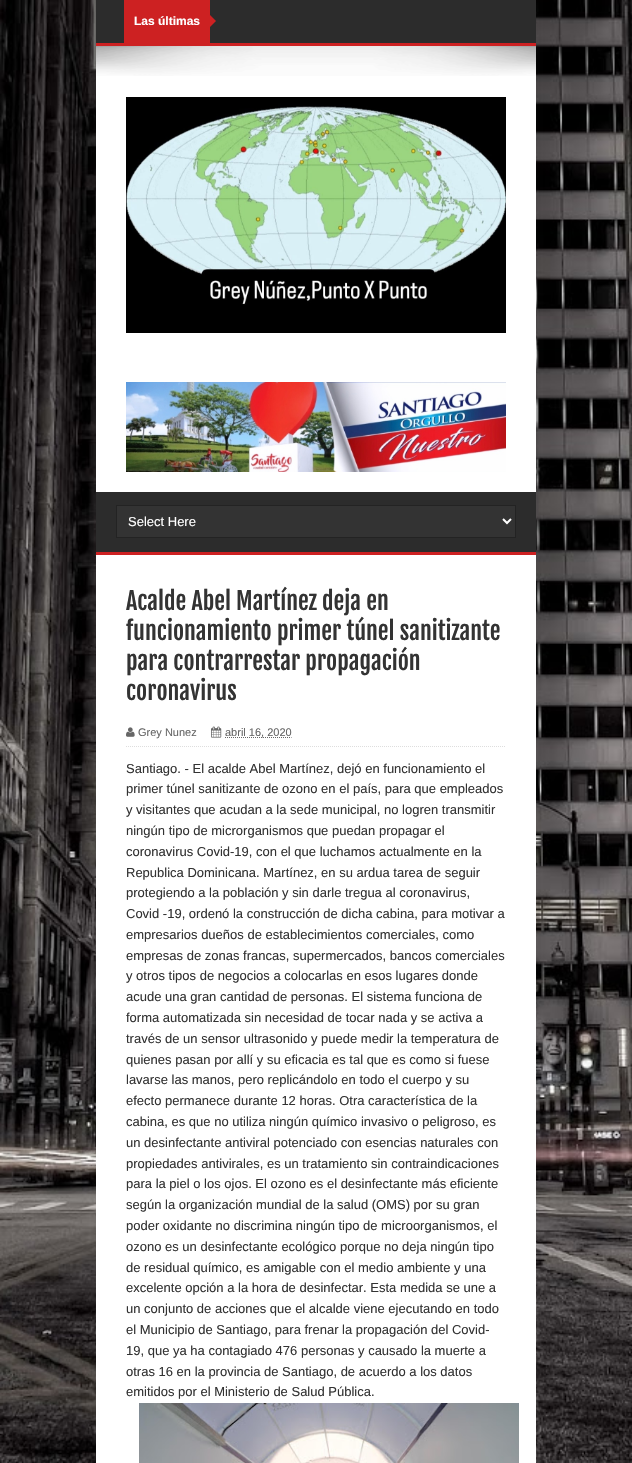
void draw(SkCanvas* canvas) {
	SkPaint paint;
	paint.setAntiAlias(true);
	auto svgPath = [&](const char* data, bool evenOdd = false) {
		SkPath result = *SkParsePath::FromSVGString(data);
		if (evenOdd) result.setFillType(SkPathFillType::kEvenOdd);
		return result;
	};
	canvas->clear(0xffffffff);
	canvas->drawImageRect(SkImages::DeferredFromEncodedData(SkData::MakeFromFileName("img1.png")), SkRect::MakeXYWH(0, 0, 632, 1463), SkSamplingOptions());
	paint.setColor(0x1a505050);
	paint.setMaskFilter(SkMaskFilter::MakeBlur(kNormal_SkBlurStyle, 2.5));
	canvas->drawRect(SkRect::MakeXYWH(96, 0, 440, 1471), paint);
	paint.setMaskFilter(nullptr);
	paint.setColor(0xffffffff);
	canvas->drawRect(SkRect::MakeXYWH(96, 46, 440, 1417), paint);
	paint.setColor(0xff2c2c2c);
	canvas->drawRect(SkRect::MakeXYWH(96, 0, 440, 43), paint);
	paint.setColor(0xffcd2122);
	canvas->drawRect(SkRect::MakeXYWH(96, 43, 440, 3), paint);
	canvas->drawRect(SkRect::MakeXYWH(124, 0, 86, 43), paint);
	SkFont f1(fontMgr->matchFamilyStyle("Liberation Sans", SkFontStyle::Bold()), 12);
	f1.setSubpixel(true);
	paint.setColor(0xffffffff);
	canvas->drawString("Las últimas", 134, 25, f1, paint);
	paint.setColor(0xffcd2122);
	canvas->drawPath(svgPath("M210 27V15L216 21Z"), paint);
	canvas->drawImageRect(SkImages::DeferredFromEncodedData(SkData::MakeFromFileName("img2.png")), SkRect::MakeXYWH(96, 46, 440, 30), SkSamplingOptions());
	canvas->drawImageRect(SkImages::DeferredFromEncodedData(SkData::MakeFromFileName("img3.png")), SkRect::MakeXYWH(126, 97, 380, 236), SkSamplingOptions());
	canvas->drawImageRect(SkImages::DeferredFromEncodedData(SkData::MakeFromFileName("img4.png")), SkRect::MakeXYWH(126, 382, 380, 90), SkSamplingOptions());
	paint.setColor(0xff2c2c2c);
	canvas->drawRect(SkRect::MakeXYWH(96, 492, 440, 60), paint);
	paint.setColor(0xffcd2122);
	canvas->drawRect(SkRect::MakeXYWH(96, 552, 440, 3), paint);
	paint.setColor(0xff333333);
	canvas->drawRect(SkRect::MakeXYWH(116.5, 505.5, 399, 32), paint);
	paint.setStroke(true);
	paint.setStrokeWidth(1);
	paint.setColor(0xff232323);
	canvas->drawRect(SkRect::MakeXYWH(116.5, 505.5, 399, 32), paint);
	paint.setStrokeWidth(2);
	paint.setColor(0xffffffff);
	canvas->drawPath(svgPath("M503 519L507 523L511 519"), paint);
	SkFont f2(fontMgr->matchFamilyStyle("Liberation Sans", SkFontStyle::Normal()), 13);
	f2.setSubpixel(true);
	paint.setStroke(false);
	canvas->drawString("Select Here", 128, 526, f2, paint);
	SkFont f3(fontMgr->matchFamilyStyle("Fjalla One", SkFontStyle::Normal()), 24);
	f3.setSubpixel(true);
	paint.setColor(0xff333333);
	canvas->drawString("Acalde Abel Martínez deja en", 126, 610, f3, paint);
	canvas->drawString("funcionamiento primer túnel sanitizante", 126, 640, f3, paint);
	canvas->drawString("para contrarrestar propagación", 126, 670, f3, paint);
	canvas->drawString("coronavirus", 126, 700, f3, paint);
	paint.setStroke(true);
	paint.setStrokeWidth(1);
	paint.setColor(0xffdedede);
	paint.setPathEffect(SkDashPathEffect::Make({{1, 1}}, 0));
	canvas->drawPath(svgPath("M126 746.5H506"), paint);
	paint.setPathEffect(nullptr);
	canvas->drawImageRect(SkImages::DeferredFromEncodedData(SkData::MakeFromFileName("img5.png")), SkRect::MakeXYWH(126, 727, 9, 10), SkSamplingOptions());
	SkFont f4(fontMgr->matchFamilyStyle("Liberation Sans", SkFontStyle::Normal()), 11);
	f4.setSubpixel(true);
	paint.setStroke(false);
	paint.setColor(0xff666666);
	canvas->drawString("Grey Nunez", 138, 736, f4, paint);
	canvas->drawImageRect(SkImages::DeferredFromEncodedData(SkData::MakeFromFileName("img6.png")), SkRect::MakeXYWH(211, 726, 11, 12), SkSamplingOptions());
	paint.setStroke(true);
	paint.setPathEffect(SkDashPathEffect::Make({{1, 1}}, 0));
	canvas->drawPath(svgPath("M225 737.5H291.5"), paint);
	paint.setPathEffect(nullptr);
	paint.setStroke(false);
	canvas->drawString("abril 16, 2020", 225, 736, f4, paint);
	paint.setColor(0xff333333);
	canvas->drawString("Santiago. - El acalde Abel Martínez, dejó en funcionamiento el", 126, 773, f2, paint);
	canvas->drawString("primer túnel sanitizante de ozono en el país, para que empleados", 126, 793, f2, paint);
	canvas->drawString("y visitantes que acudan a la sede municipal, no logren transmitir", 126, 814, f2, paint);
	canvas->drawString("ningún tipo de microrganismos que puedan propagar el", 126, 835, f2, paint);
	canvas->drawString("coronavirus Covid-19, con el que luchamos actualmente en la", 126, 856, f2, paint);
	canvas->drawString("Republica Dominicana. Martínez, en su ardua tarea de seguir", 126, 877, f2, paint);
	canvas->drawString("protegiendo a la población y sin darle tregua al coronavirus,", 126, 897, f2, paint);
	canvas->drawString("Covid -19, ordenó la construcción de dicha cabina, para motivar a", 126, 918, f2, paint);
	canvas->drawString("empresarios dueños de establecimientos comerciales, como", 126, 939, f2, paint);
	canvas->drawString("empresas de zonas francas, supermercados, bancos comerciales", 126, 960, f2, paint);
	canvas->drawString("y otros tipos de negocios a colocarlas en esos lugares donde", 126, 980, f2, paint);
	canvas->drawString("acude una gran cantidad de personas. El sistema funciona de", 126, 1001, f2, paint);
	canvas->drawString("forma automatizada sin necesidad de tocar nada y se activa a", 126, 1022, f2, paint);
	canvas->drawString("través de un sensor ultrasonido y puede medir la temperatura de", 126, 1043, f2, paint);
	canvas->drawString("quienes pasan por allí y su eficacia es tal que es como si fuese", 126, 1064, f2, paint);
	canvas->drawString("lavarse las manos, pero replicándolo en todo el cuerpo y su", 126, 1084, f2, paint);
	canvas->drawString("efecto permanece durante 12 horas. Otra característica de la", 126, 1105, f2, paint);
	canvas->drawString("cabina, es que no utiliza ningún químico invasivo o peligroso, es", 126, 1126, f2, paint);
	canvas->drawString("un desinfectante antiviral potenciado con esencias naturales con", 126, 1147, f2, paint);
	canvas->drawString("propiedades antivirales, es un tratamiento sin contraindicaciones", 126, 1168, f2, paint);
	canvas->drawString("para la piel o los ojos. El ozono es el desinfectante más eficiente", 126, 1188, f2, paint);
	canvas->drawString("según la organización mundial de la salud (OMS) por su gran", 126, 1209, f2, paint);
	canvas->drawString("poder oxidante no discrimina ningún tipo de microorganismos, el", 126, 1230, f2, paint);
	canvas->drawString("ozono es un desinfectante ecológico porque no deja ningún tipo", 126, 1251, f2, paint);
	canvas->drawString("de residual químico, es amigable con el medio ambiente y una", 126, 1272, f2, paint);
	canvas->drawString("excelente opción a la hora de desinfectar. Esta medida se une a", 126, 1292, f2, paint);
	canvas->drawString("un conjunto de acciones que el alcalde viene ejecutando en todo", 126, 1313, f2, paint);
	canvas->drawString("el Municipio de Santiago, para frenar la propagación del Covid-", 126, 1334, f2, paint);
	canvas->drawString("19, que ya ha contagiado 476 personas y causado la muerte a", 126, 1355, f2, paint);
	canvas->drawString("otras 16 en la provincia de Santiago, de acuerdo a los datos", 126, 1376, f2, paint);
	canvas->drawString("emitidos por el Ministerio de Salud Pública.", 126, 1396, f2, paint);
	canvas->drawImageRect(SkImages::DeferredFromEncodedData(SkData::MakeFromFileName("img7.png")), SkRect::MakeXYWH(139, 1403, 380, 60), SkSamplingOptions());
}
